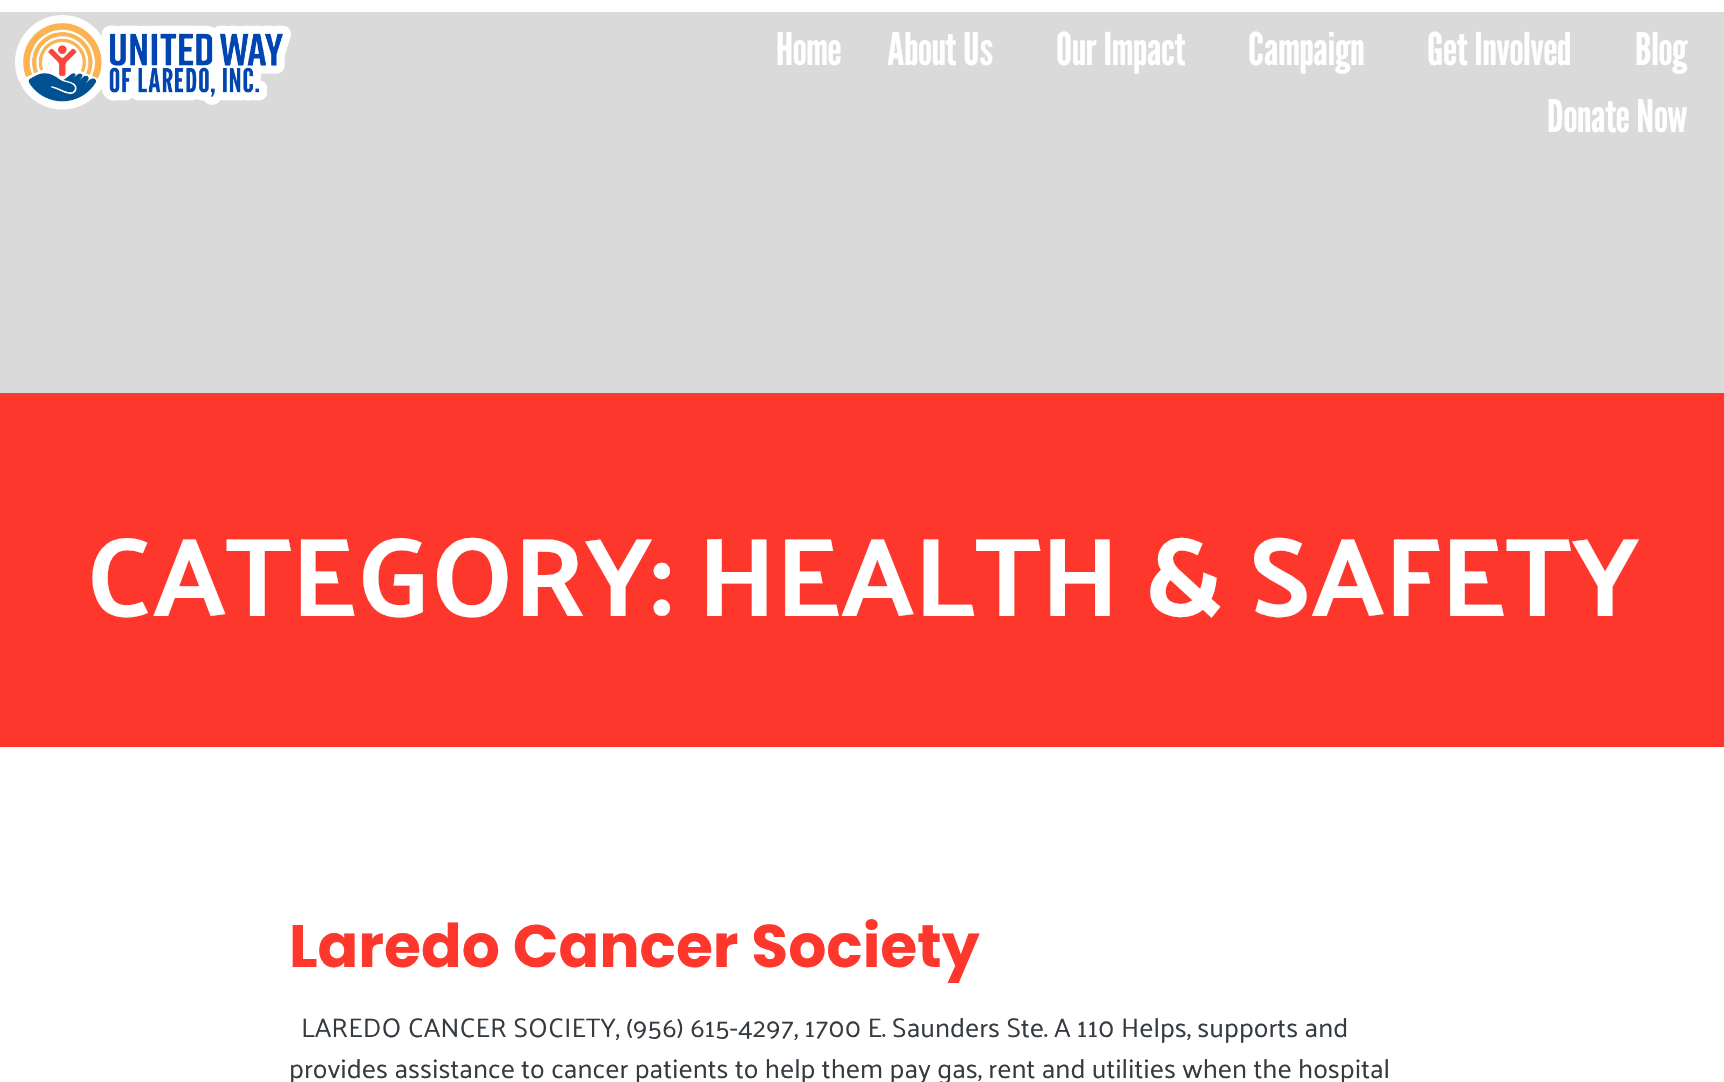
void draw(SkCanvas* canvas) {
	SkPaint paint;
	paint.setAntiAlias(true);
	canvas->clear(0xffffffff);
	paint.setColor(0xffdadada);
	canvas->drawRect(SkRect::MakeXYWH(0, 12, 1724, 381), paint);
	canvas->drawImageRect(SkImages::DeferredFromEncodedData(SkData::MakeFromFileName("img1.png")), SkRect::MakeXYWH(15, 15, 276, 95), SkSamplingOptions());
	SkFont f1(fontMgr->matchFamilyStyle("League Gothic", SkFontStyle::Normal()), 45);
	f1.setSubpixel(true);
	paint.setColor(0xffffffff);
	canvas->drawString("Home", 776, 65, f1, paint);
	canvas->drawString("About Us", 887, 65, f1, paint);
	canvas->drawString("Our Impact", 1056, 65, f1, paint);
	canvas->drawString("Campaign", 1248, 65, f1, paint);
	canvas->drawString("Get Involved", 1427, 65, f1, paint);
	canvas->drawString("Blog", 1635, 65, f1, paint);
	canvas->drawString("Donate Now", 1547, 132, f1, paint);
	paint.setColor(0xfffd372c);
	canvas->drawRect(SkRect::MakeXYWH(0, 393, 1724, 354), paint);
	SkFont f2(fontMgr->matchFamilyStyle("Palanquin", SkFontStyle::Bold()), 112.5);
	f2.setSubpixel(true);
	paint.setColor(0xffffffff);
	canvas->drawString("CATEGORY: HEALTH & SAFETY", 86, 616, f2, paint);
	SkFont f3(fontMgr->matchFamilyStyle("Poppins", SkFontStyle::Bold()), 60);
	f3.setSubpixel(true);
	paint.setColor(0xfffd372c);
	canvas->drawString("Laredo Cancer Society", 289, 967, f3, paint);
	SkFont f4(fontMgr->matchFamilyStyle("Palanquin", SkFontStyle::Normal()), 27);
	f4.setSubpixel(true);
	paint.setColor(0xff363b40);
	canvas->drawString("LAREDO CANCER SOCIETY, (956) 615-4297, 1700 E. Saunders Ste. A 110 Helps, supports and", 301, 1037, f4, paint);
	canvas->drawString("provides assistance to cancer patients to help them pay gas, rent and utilities when the hospital", 289, 1078, f4, paint);
}
